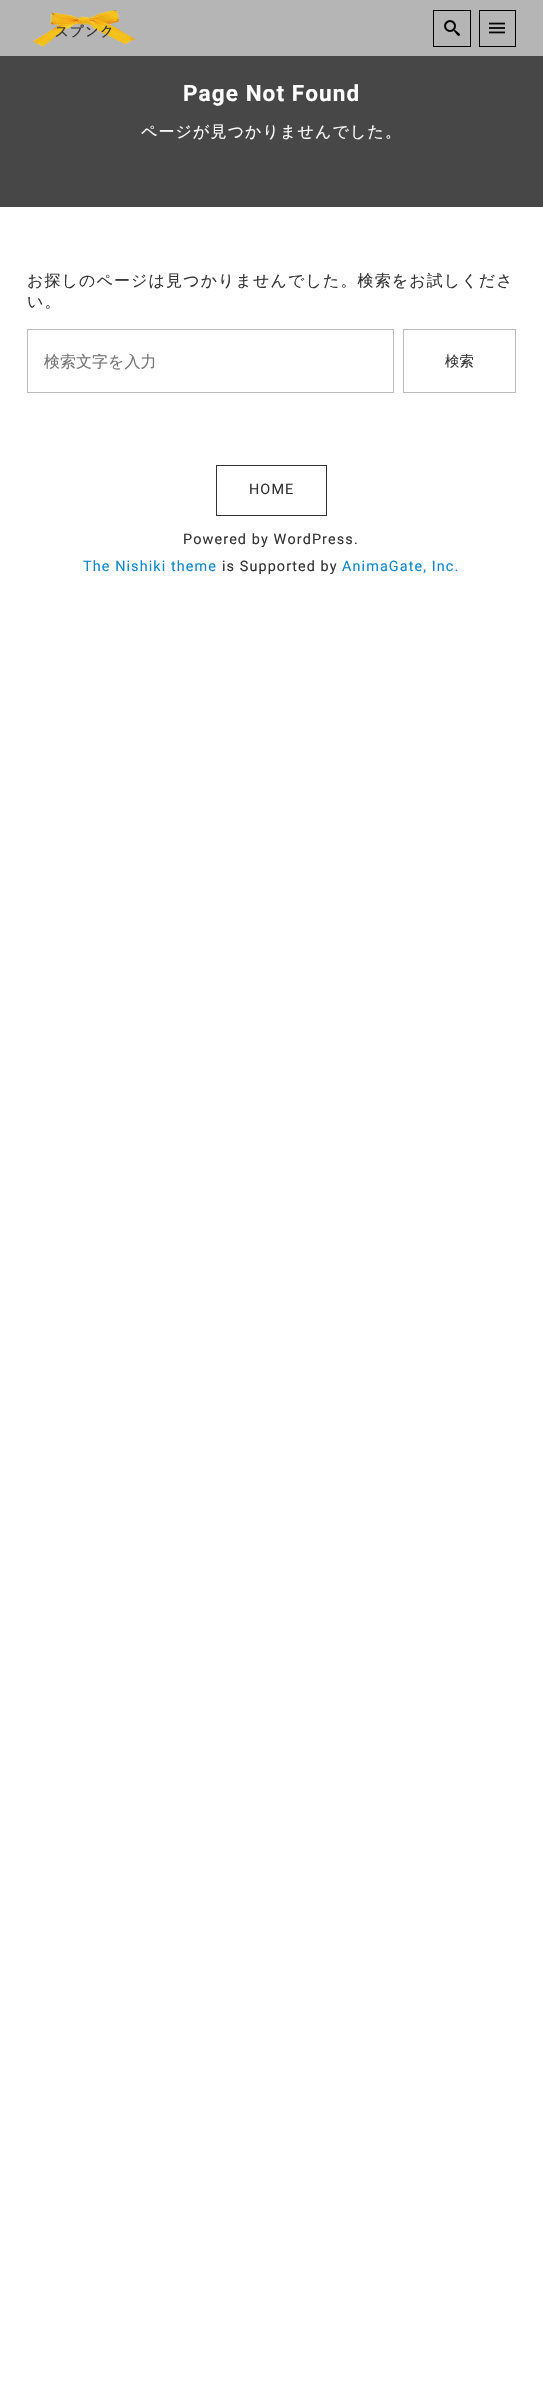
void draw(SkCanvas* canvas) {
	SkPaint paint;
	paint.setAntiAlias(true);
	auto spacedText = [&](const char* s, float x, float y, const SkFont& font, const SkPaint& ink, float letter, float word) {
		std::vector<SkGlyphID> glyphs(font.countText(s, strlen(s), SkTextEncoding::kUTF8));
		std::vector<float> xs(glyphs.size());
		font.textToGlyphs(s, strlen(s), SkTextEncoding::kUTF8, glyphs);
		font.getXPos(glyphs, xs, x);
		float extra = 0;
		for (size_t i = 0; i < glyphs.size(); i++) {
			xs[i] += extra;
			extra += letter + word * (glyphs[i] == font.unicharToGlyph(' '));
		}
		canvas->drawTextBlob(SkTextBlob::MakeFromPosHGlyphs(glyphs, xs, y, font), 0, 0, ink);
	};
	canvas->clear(0xffffffff);
	paint.setColor(0xffb5b5b5);
	canvas->drawRect(SkRect::MakeXYWH(0, 0, 543, 56), paint);
	canvas->drawImageRect(SkImages::DeferredFromEncodedData(SkData::MakeFromFileName("img1.png")), SkRect::MakeXYWH(32, 10, 103, 37), SkSamplingOptions());
	paint.setStroke(true);
	paint.setStrokeWidth(1);
	paint.setColor(0xff000000);
	canvas->drawRect(SkRect::MakeXYWH(433.5, 10.5, 37, 36), paint);
	canvas->drawImageRect(SkImages::DeferredFromEncodedData(SkData::MakeFromFileName("img2.png")), SkRect::MakeXYWH(444, 20, 16, 16), SkSamplingOptions());
	canvas->drawRect(SkRect::MakeXYWH(479.5, 10.5, 36, 36), paint);
	canvas->drawImageRect(SkImages::DeferredFromEncodedData(SkData::MakeFromFileName("img3.png")), SkRect::MakeXYWH(489, 22, 16, 12), SkSamplingOptions());
	paint.setStroke(false);
	paint.setColor(0xff474747);
	canvas->drawRect(SkRect::MakeXYWH(0, 56, 543, 151), paint);
	SkFont f1(fontMgr->matchFamilyStyle("Roboto", SkFontStyle::Bold()), 22.5);
	f1.setSubpixel(true);
	paint.setColor(0xffffffff);
	spacedText("Page Not Found", 183, 101, f1, paint, 1.1, 0);
	SkFont f2(fontMgr->matchFamilyStyle("WenQuanYi Zen Hei", SkFontStyle(500, SkFontStyle::kNormal_Width, SkFontStyle::kUpright_Slant)), 16);
	f2.setSubpixel(true);
	spacedText("ページが見つかりませんでした。", 141, 137, f2, paint, 1.1, 0);
	paint.setColor(0xff333333);
	spacedText("お探しのページは見つかりませんでした。検索をお試しくださ", 27, 286, f2, paint, 1.1, 0);
	spacedText("い。", 27, 307, f2, paint, 1.1, 0);
	paint.setStroke(true);
	paint.setColor(0xffbbbbbb);
	canvas->drawRect(SkRect::MakeXYWH(27.5, 329.5, 366, 63), paint);
	paint.setStroke(false);
	paint.setColor(0xff757575);
	canvas->drawString("検索文字を入力", 44, 367, f2, paint);
	paint.setStroke(true);
	paint.setColor(0xffbbbbbb);
	canvas->drawRect(SkRect::MakeXYWH(403.5, 329.5, 112, 63), paint);
	SkFont f3(fontMgr->matchFamilyStyle("WenQuanYi Zen Hei", SkFontStyle(500, SkFontStyle::kNormal_Width, SkFontStyle::kUpright_Slant)), 14.4);
	f3.setSubpixel(true);
	paint.setStroke(false);
	paint.setColor(0xff333333);
	canvas->drawString("検索", 445, 366, f3, paint);
	paint.setStroke(true);
	canvas->drawRect(SkRect::MakeXYWH(216.5, 465.5, 110, 50), paint);
	SkFont f4(fontMgr->matchFamilyStyle("Roboto", SkFontStyle::Normal()), 14.4);
	f4.setSubpixel(true);
	paint.setStroke(false);
	spacedText("HOME", 249, 494, f4, paint, 1.1, 0);
	spacedText("Powered by WordPress.", 183, 544, f4, paint, 1.1, 0);
	paint.setColor(0xff0a88cc);
	spacedText("The Nishiki theme", 83, 571, f4, paint, 1.1, 0);
	paint.setColor(0xff333333);
	spacedText("is Supported by", 222, 571, f4, paint, 1.1, 0);
	paint.setColor(0xff0a88cc);
	spacedText("AnimaGate, Inc.", 342, 571, f4, paint, 1.1, 0);
}
